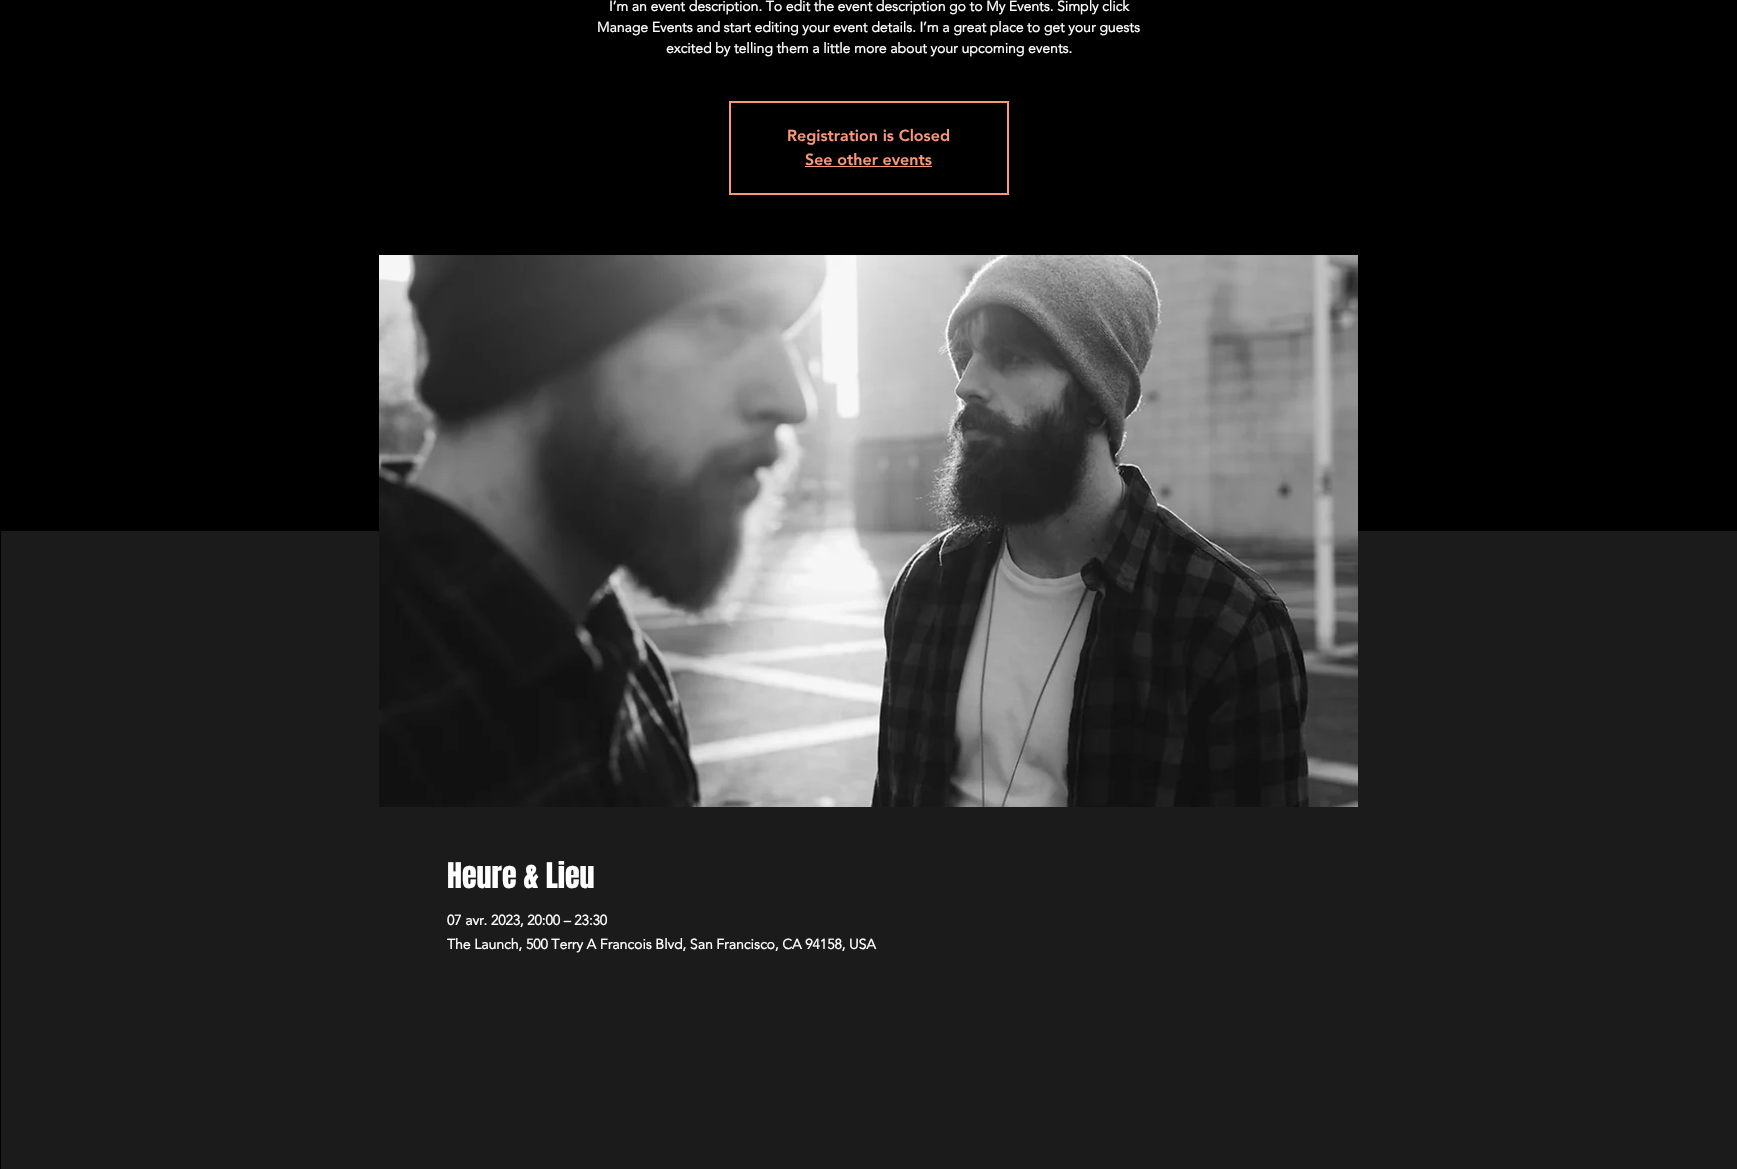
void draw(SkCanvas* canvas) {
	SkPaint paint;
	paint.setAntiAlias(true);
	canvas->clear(0xff000000);
	SkFont f1(fontMgr->matchFamilyStyle("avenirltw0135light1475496", SkFontStyle::Bold()), 14);
	f1.setSubpixel(true);
	paint.setColor(0xffffffff);
	canvas->drawString("I’m an event description. To edit the event description go to My Events. Simply click", 609, 11, f1, paint);
	canvas->drawString("Manage Events and start editing your event details. I’m a great place to get your guests", 597, 32, f1, paint);
	canvas->drawString("excited by telling them a little more about your upcoming events.", 666, 53, f1, paint);
	paint.setStroke(true);
	paint.setStrokeWidth(2);
	paint.setColor(0xfffc9779);
	canvas->drawRect(SkRect::MakeXYWH(730, 102, 278, 92), paint);
	SkFont f2(fontMgr->matchFamilyStyle("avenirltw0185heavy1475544", SkFontStyle(900, SkFontStyle::kNormal_Width, SkFontStyle::kUpright_Slant)), 16);
	f2.setSubpixel(true);
	paint.setStroke(false);
	canvas->drawString("Registration is Closed", 787, 141, f2, paint);
	canvas->drawString("See other events", 805, 165, f2, paint);
	canvas->drawRect(SkRect::MakeXYWH(805, 166, 127, 1), paint);
	paint.setColor(0xff1b1b1b);
	canvas->drawRect(SkRect::MakeXYWH(1, 531, 1736, 638), paint);
	canvas->drawImageRect(SkImages::DeferredFromEncodedData(SkData::MakeFromFileName("img1.png")), SkRect::MakeXYWH(379, 255, 979, 552), SkSamplingOptions());
	SkFont f3(fontMgr->matchFamilyStyle("Anton", SkFontStyle::Normal()), 30);
	f3.setSubpixel(true);
	paint.setColor(0xffffffff);
	canvas->drawString("Heure & Lieu", 447, 888, f3, paint);
	canvas->drawString("07 avr. 2023, 20:00 – 23:30", 447, 925, f1, paint);
	canvas->drawString("The Launch, 500 Terry A Francois Blvd, San Francisco, CA 94158, USA", 447, 949, f1, paint);
}
